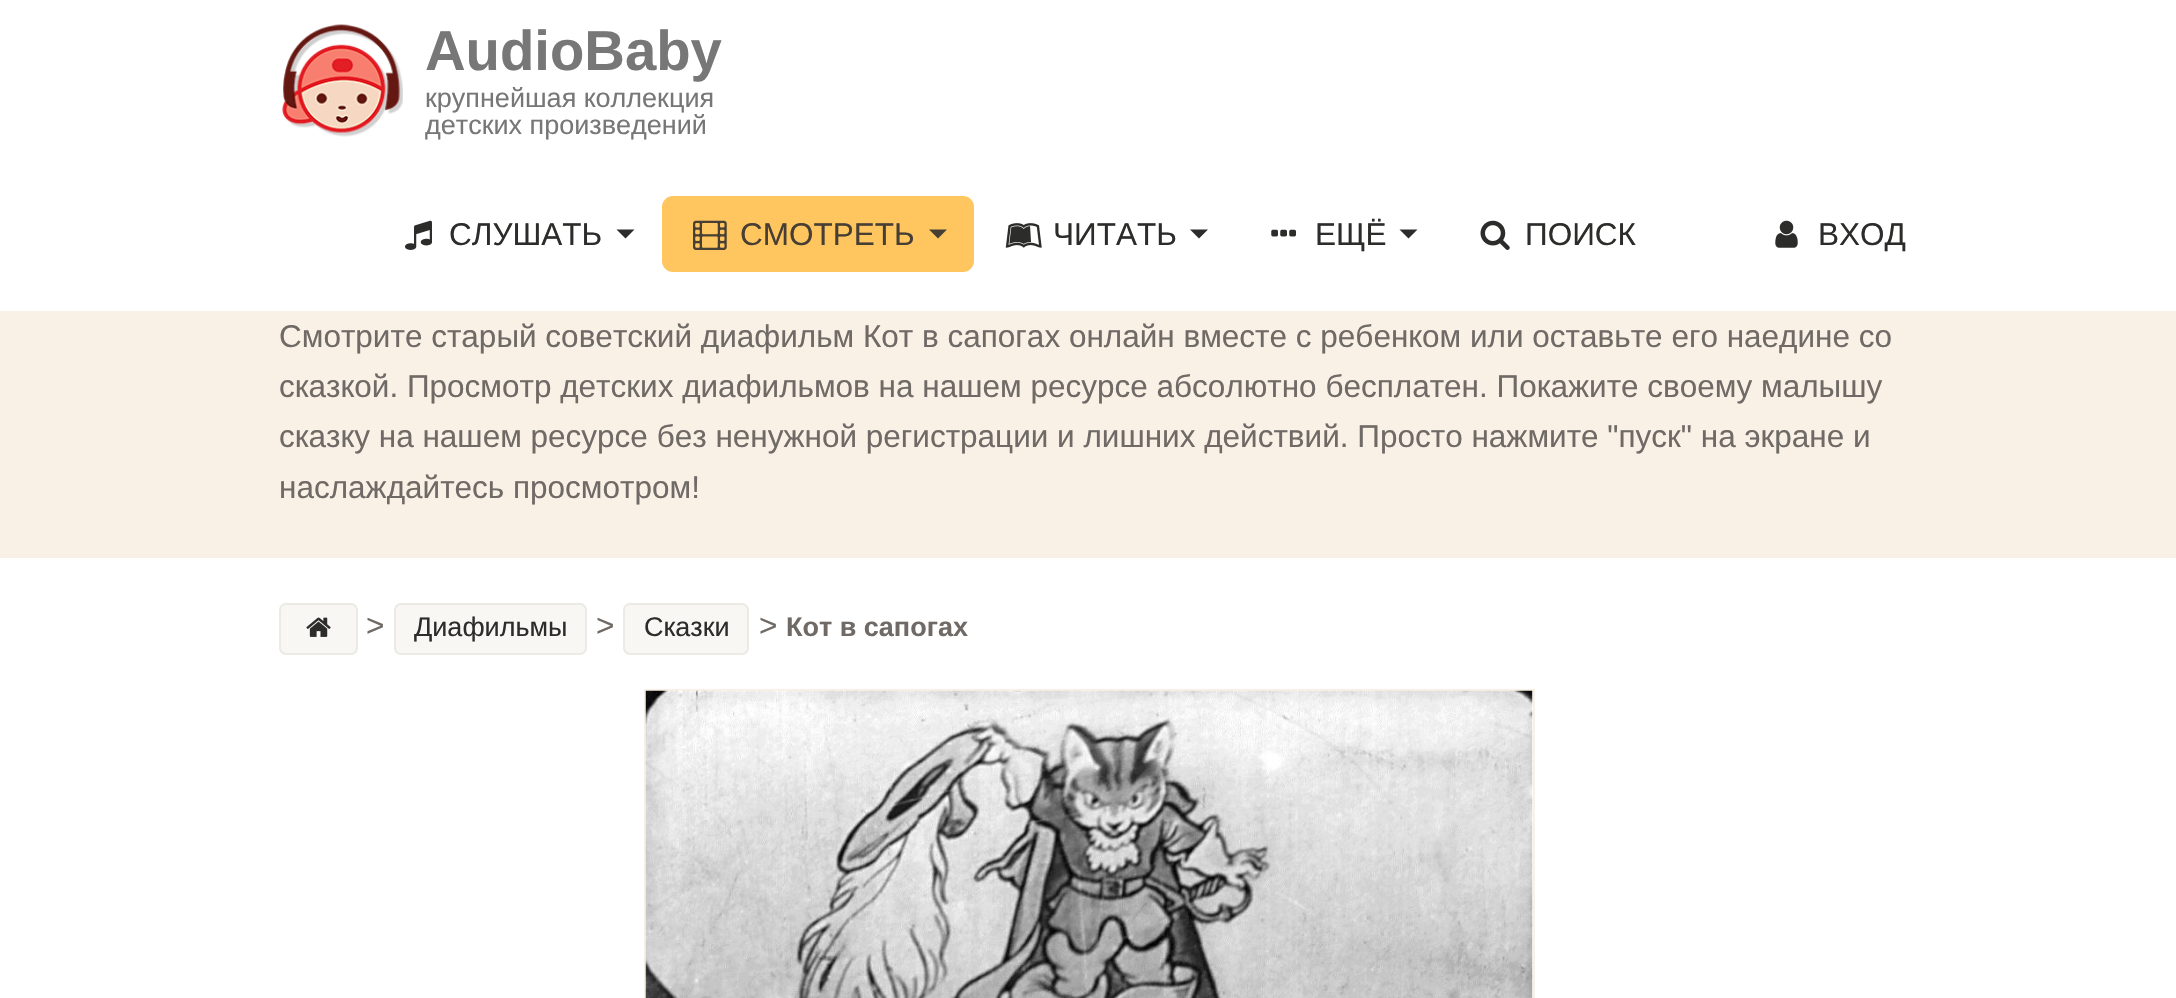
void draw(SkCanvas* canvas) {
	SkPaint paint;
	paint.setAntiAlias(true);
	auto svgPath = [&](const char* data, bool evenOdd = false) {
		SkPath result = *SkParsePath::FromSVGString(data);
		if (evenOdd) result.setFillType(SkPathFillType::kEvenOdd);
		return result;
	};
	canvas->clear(0xffffffff);
	canvas->drawImageRect(SkImages::DeferredFromEncodedData(SkData::MakeFromFileName("img1.png")), SkRect::MakeXYWH(282, 24, 121, 113), SkSamplingOptions());
	SkFont f1(fontMgr->matchFamilyStyle("Liberation Sans", SkFontStyle::Bold()), 56.25);
	f1.setSubpixel(true);
	paint.setColor(0xff777777);
	canvas->drawString("AudioBaby", 425, 70, f1, paint);
	SkFont f2(fontMgr->matchFamilyStyle("Liberation Sans", SkFontStyle::Normal()), 27);
	f2.setSubpixel(true);
	canvas->drawString("крупнейшая коллекция", 425, 107, f2, paint);
	canvas->drawString("детских произведений", 425, 134, f2, paint);
	canvas->drawImageRect(SkImages::DeferredFromEncodedData(SkData::MakeFromFileName("img2.png")), SkRect::MakeXYWH(405, 220, 27, 30), SkSamplingOptions());
	SkFont f3(fontMgr->matchFamilyStyle("Liberation Sans", SkFontStyle::Normal()), 31.5);
	f3.setSubpixel(true);
	paint.setColor(0xff2c2c2a);
	canvas->drawString("СЛУШАТЬ", 449, 245, f3, paint);
	canvas->drawPath(svgPath("M616.5 229.5H634.5L625.5 238.5Z"), paint);
	paint.setColor(0xffffc55f);
	canvas->drawRoundRect(SkRect::MakeXYWH(662, 196, 312, 76), 11, 11, paint);
	canvas->drawImageRect(SkImages::DeferredFromEncodedData(SkData::MakeFromFileName("img3.png")), SkRect::MakeXYWH(693, 220, 34, 30), SkSamplingOptions());
	paint.setColor(0xff483f34);
	canvas->drawString("СМОТРЕТЬ", 740, 245, f3, paint);
	canvas->drawPath(svgPath("M929 229.5H947L938 238.5Z"), paint);
	canvas->drawImageRect(SkImages::DeferredFromEncodedData(SkData::MakeFromFileName("img4.png")), SkRect::MakeXYWH(1005, 223, 37, 25), SkSamplingOptions());
	paint.setColor(0xff2c2c2a);
	canvas->drawString("ЧИТАТЬ", 1053, 245, f3, paint);
	canvas->drawPath(svgPath("M1190 229.5H1208L1199 238.5Z"), paint);
	canvas->drawImageRect(SkImages::DeferredFromEncodedData(SkData::MakeFromFileName("img5.png")), SkRect::MakeXYWH(1271, 229, 25, 8), SkSamplingOptions());
	canvas->drawString("ЕЩЁ", 1315, 245, f3, paint);
	canvas->drawPath(svgPath("M1399.5 229.5H1417.5L1408.5 238.5Z"), paint);
	canvas->drawImageRect(SkImages::DeferredFromEncodedData(SkData::MakeFromFileName("img6.png")), SkRect::MakeXYWH(1480, 220, 30, 30), SkSamplingOptions());
	canvas->drawString("ПОИСК", 1525, 245, f3, paint);
	canvas->drawImageRect(SkImages::DeferredFromEncodedData(SkData::MakeFromFileName("img7.png")), SkRect::MakeXYWH(1775, 220, 23, 28), SkSamplingOptions());
	canvas->drawString("ВХОД", 1818, 245, f3, paint);
	paint.setColor(0xfff9f1e6);
	canvas->drawRect(SkRect::MakeXYWH(0, 311, 2176, 247), paint);
	paint.setColor(0xff6f6a66);
	canvas->drawString("Смотрите старый советский диафильм Кот в сапогах онлайн вместе с ребенком или оставьте его наедине со", 279, 347, f3, paint);
	canvas->drawString("сказкой. Просмотр детских диафильмов на нашем ресурсе абсолютно бесплатен. Покажите своему малышу", 279, 397, f3, paint);
	canvas->drawString("сказку на нашем ресурсе без ненужной регистрации и лишних действий. Просто нажмите \"пуск\" на экране и", 279, 447, f3, paint);
	canvas->drawString("наслаждайтесь просмотром!", 279, 498, f3, paint);
	paint.setColor(0xfff8f7f3);
	canvas->drawRoundRect(SkRect::MakeXYWH(280, 604, 77, 50), 6, 6, paint);
	paint.setStroke(true);
	paint.setStrokeWidth(2);
	paint.setColor(0xffeceae4);
	canvas->drawRoundRect(SkRect::MakeXYWH(280, 604, 77, 50), 6, 6, paint);
	canvas->drawImageRect(SkImages::DeferredFromEncodedData(SkData::MakeFromFileName("img8.png")), SkRect::MakeXYWH(306, 617, 25, 20), SkSamplingOptions());
	paint.setStroke(false);
	paint.setColor(0xff6f6a66);
	canvas->drawString(">", 366, 636, f3, paint);
	paint.setColor(0xfff8f7f3);
	canvas->drawRoundRect(SkRect::MakeXYWH(395, 604, 191, 50), 6, 6, paint);
	paint.setStroke(true);
	paint.setColor(0xffeceae4);
	canvas->drawRoundRect(SkRect::MakeXYWH(395, 604, 191, 50), 6, 6, paint);
	paint.setStroke(false);
	paint.setColor(0xff2c2c2a);
	canvas->drawString("Диафильмы", 414, 636, f2, paint);
	paint.setColor(0xff6f6a66);
	canvas->drawString(">", 596, 636, f3, paint);
	paint.setColor(0xfff8f7f3);
	canvas->drawRoundRect(SkRect::MakeXYWH(624, 604, 124, 50), 6, 6, paint);
	paint.setStroke(true);
	paint.setColor(0xffeceae4);
	canvas->drawRoundRect(SkRect::MakeXYWH(624, 604, 124, 50), 6, 6, paint);
	paint.setStroke(false);
	paint.setColor(0xff2c2c2a);
	canvas->drawString("Сказки", 644, 636, f2, paint);
	paint.setColor(0xff6f6a66);
	canvas->drawString(">", 759, 636, f3, paint);
	SkFont f4(fontMgr->matchFamilyStyle("Liberation Sans", SkFontStyle::Bold()), 27);
	f4.setSubpixel(true);
	canvas->drawString("Кот в сапогах", 786, 636, f4, paint);
	paint.setStroke(true);
	paint.setColor(0xfff9f1e6);
	canvas->drawRect(SkRect::MakeXYWH(645, 690, 889, 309), paint);
	canvas->drawImageRect(SkImages::DeferredFromEncodedData(SkData::MakeFromFileName("img9.png")), SkRect::MakeXYWH(645, 690, 888, 308), SkSamplingOptions());
}
